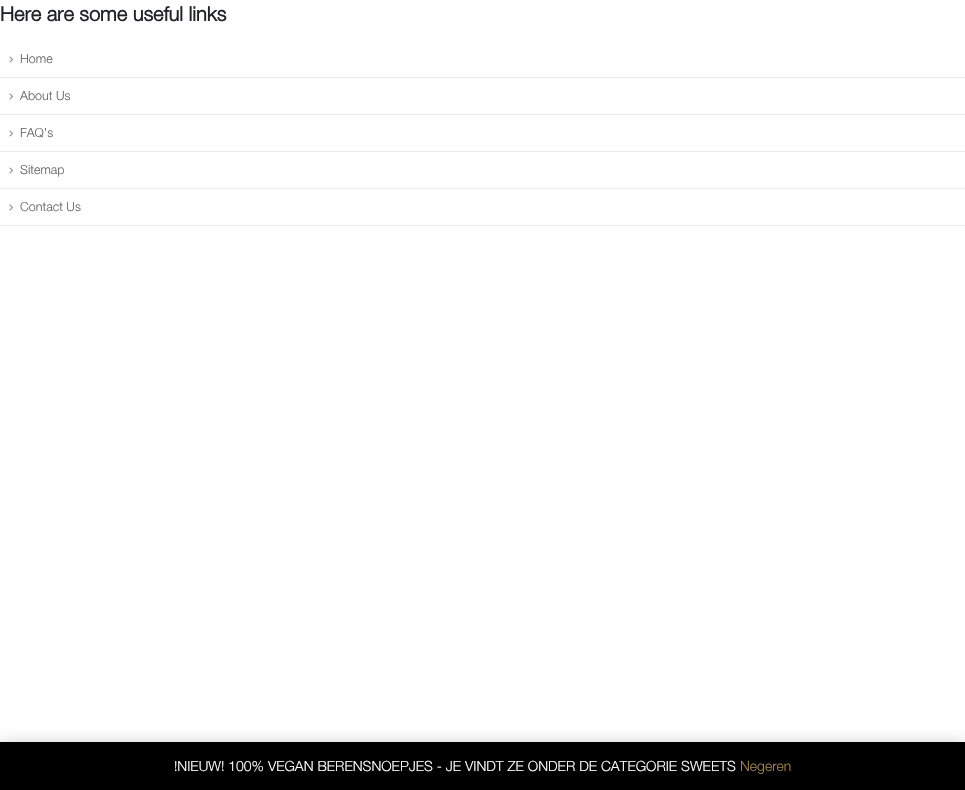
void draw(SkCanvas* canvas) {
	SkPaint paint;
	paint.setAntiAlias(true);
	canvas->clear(0xffffffff);
	SkFont f1(fontMgr->matchFamilyStyle("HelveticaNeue", SkFontStyle::Bold()), 20);
	f1.setSubpixel(true);
	paint.setColor(0xff222329);
	canvas->drawString("Here are some useful links", 0, 21, f1, paint);
	paint.setColor(0xffebebeb);
	canvas->drawRect(SkRect::MakeXYWH(0, 77, 965, 1), paint);
	canvas->drawImageRect(SkImages::DeferredFromEncodedData(SkData::MakeFromFileName("img1.png")), SkRect::MakeXYWH(9, 56, 4, 7), SkSamplingOptions());
	SkFont f2(fontMgr->matchFamilyStyle("HelveticaNeue", SkFontStyle(300, SkFontStyle::kNormal_Width, SkFontStyle::kUpright_Slant)), 12.5);
	f2.setSubpixel(true);
	paint.setColor(0xff666666);
	canvas->drawString("Home", 20, 63, f2, paint);
	paint.setColor(0xffebebeb);
	canvas->drawRect(SkRect::MakeXYWH(0, 114, 965, 1), paint);
	canvas->drawImageRect(SkImages::DeferredFromEncodedData(SkData::MakeFromFileName("img1.png")), SkRect::MakeXYWH(9, 93, 4, 7), SkSamplingOptions());
	paint.setColor(0xff666666);
	canvas->drawString("About Us", 20, 100, f2, paint);
	paint.setColor(0xffebebeb);
	canvas->drawRect(SkRect::MakeXYWH(0, 151, 965, 1), paint);
	canvas->drawImageRect(SkImages::DeferredFromEncodedData(SkData::MakeFromFileName("img1.png")), SkRect::MakeXYWH(9, 130, 4, 7), SkSamplingOptions());
	paint.setColor(0xff666666);
	canvas->drawString("FAQ’s", 20, 137, f2, paint);
	paint.setColor(0xffebebeb);
	canvas->drawRect(SkRect::MakeXYWH(0, 188, 965, 1), paint);
	canvas->drawImageRect(SkImages::DeferredFromEncodedData(SkData::MakeFromFileName("img1.png")), SkRect::MakeXYWH(9, 167, 4, 7), SkSamplingOptions());
	paint.setColor(0xff666666);
	canvas->drawString("Sitemap", 20, 174, f2, paint);
	paint.setColor(0xffebebeb);
	canvas->drawRect(SkRect::MakeXYWH(0, 225, 965, 1), paint);
	canvas->drawImageRect(SkImages::DeferredFromEncodedData(SkData::MakeFromFileName("img1.png")), SkRect::MakeXYWH(9, 204, 4, 7), SkSamplingOptions());
	paint.setColor(0xff666666);
	canvas->drawString("Contact Us", 20, 211, f2, paint);
	paint.setColor(0x33000000);
	paint.setMaskFilter(SkMaskFilter::MakeBlur(kNormal_SkBlurStyle, 7));
	canvas->drawRect(SkRect::MakeXYWH(0, 743, 965, 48), paint);
	paint.setMaskFilter(nullptr);
	paint.setColor(0xff000000);
	canvas->drawRect(SkRect::MakeXYWH(0, 742, 965, 48), paint);
	SkFont f3(fontMgr->matchFamilyStyle("HelveticaNeue", SkFontStyle(300, SkFontStyle::kNormal_Width, SkFontStyle::kUpright_Slant)), 14);
	f3.setSubpixel(true);
	paint.setColor(0xffffffff);
	canvas->drawString("!NIEUW! 100% VEGAN BERENSNOEPJES - JE VINDT ZE ONDER DE CATEGORIE SWEETS", 174, 771, f3, paint);
	paint.setColor(0xffa38754);
	canvas->drawString("Negeren", 740, 771, f3, paint);
}
